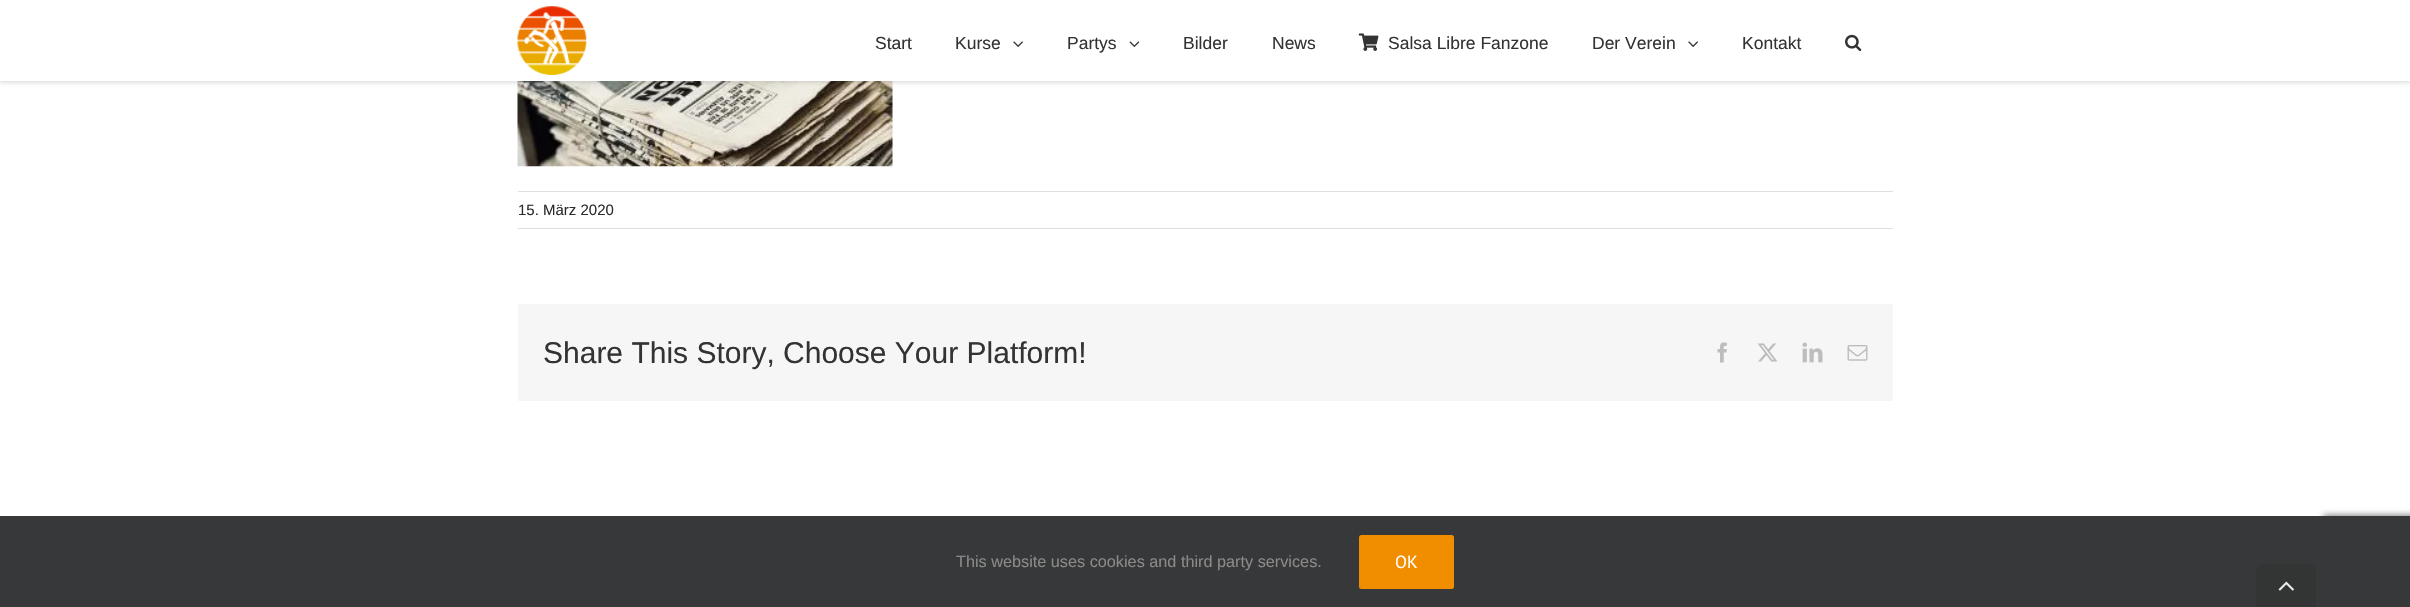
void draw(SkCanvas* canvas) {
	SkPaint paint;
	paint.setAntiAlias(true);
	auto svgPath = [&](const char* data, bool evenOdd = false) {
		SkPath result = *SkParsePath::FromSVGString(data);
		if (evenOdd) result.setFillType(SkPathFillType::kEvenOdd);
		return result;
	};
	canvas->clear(0xffffffff);
	canvas->drawImageRect(SkImages::DeferredFromEncodedData(SkData::MakeFromFileName("img6.png")), SkRect::MakeXYWH(517, 81, 376, 86), SkSamplingOptions());
	paint.setColor(0x1f000000);
	paint.setMaskFilter(SkMaskFilter::MakeBlur(kNormal_SkBlurStyle, 2));
	canvas->drawRect(SkRect::MakeXYWH(0, 1, 2410, 82), paint);
	paint.setMaskFilter(nullptr);
	paint.setColor(0xffffffff);
	canvas->drawRect(SkRect::MakeXYWH(0, 0, 2410, 81), paint);
	canvas->drawImageRect(SkImages::DeferredFromEncodedData(SkData::MakeFromFileName("img1.png")), SkRect::MakeXYWH(517, 6, 70, 69), SkSamplingOptions());
	SkFont f1(fontMgr->matchFamilyStyle("Liberation Sans", SkFontStyle::Normal()), 17.5);
	f1.setSubpixel(true);
	paint.setColor(0xff333333);
	canvas->drawString("Start", 875, 49, f1, paint);
	canvas->drawString("Kurse", 955, 49, f1, paint);
	canvas->drawImageRect(SkImages::DeferredFromEncodedData(SkData::MakeFromFileName("img2.png")), SkRect::MakeXYWH(1013, 41, 10, 6), SkSamplingOptions());
	canvas->drawString("Partys", 1067, 49, f1, paint);
	canvas->drawImageRect(SkImages::DeferredFromEncodedData(SkData::MakeFromFileName("img3.png")), SkRect::MakeXYWH(1129, 41, 11, 6), SkSamplingOptions());
	canvas->drawString("Bilder", 1183, 49, f1, paint);
	canvas->drawString("News", 1272, 49, f1, paint);
	canvas->drawImageRect(SkImages::DeferredFromEncodedData(SkData::MakeFromFileName("img4.png")), SkRect::MakeXYWH(1358, 33, 21, 18), SkSamplingOptions());
	canvas->drawString("Salsa Libre Fanzone", 1388, 49, f1, paint);
	canvas->drawString("Der Verein", 1592, 49, f1, paint);
	canvas->drawImageRect(SkImages::DeferredFromEncodedData(SkData::MakeFromFileName("img2.png")), SkRect::MakeXYWH(1688, 41, 10, 6), SkSamplingOptions());
	canvas->drawString("Kontakt", 1742, 49, f1, paint);
	canvas->drawImageRect(SkImages::DeferredFromEncodedData(SkData::MakeFromFileName("img5.png")), SkRect::MakeXYWH(1845, 34, 17, 17), SkSamplingOptions());
	paint.setColor(0xffe0dede);
	canvas->drawRect(SkRect::MakeXYWH(518, 191, 1375, 1), paint);
	canvas->drawRect(SkRect::MakeXYWH(518, 228, 1375, 1), paint);
	SkFont f2(fontMgr->matchFamilyStyle("Liberation Sans", SkFontStyle::Normal()), 15);
	f2.setSubpixel(true);
	paint.setColor(0xff2d2d2d);
	canvas->drawString("15. März 2020", 518, 215, f2, paint);
	paint.setColor(0xfff6f6f6);
	canvas->drawRect(SkRect::MakeXYWH(518, 304, 1375, 97), paint);
	SkFont f3(fontMgr->matchFamilyStyle("Liberation Sans", SkFontStyle::Normal()), 30);
	f3.setSubpixel(true);
	paint.setColor(0xff333333);
	canvas->drawString("Share This Story, Choose Your Platform!", 543, 363, f3, paint);
	canvas->drawImageRect(SkImages::DeferredFromEncodedData(SkData::MakeFromFileName("img7.png")), SkRect::MakeXYWH(1717, 342, 10, 21), SkSamplingOptions());
	canvas->drawImageRect(SkImages::DeferredFromEncodedData(SkData::MakeFromFileName("img8.png")), SkRect::MakeXYWH(1757, 343, 21, 19), SkSamplingOptions());
	canvas->drawImageRect(SkImages::DeferredFromEncodedData(SkData::MakeFromFileName("img9.png")), SkRect::MakeXYWH(1802, 342, 21, 21), SkSamplingOptions());
	canvas->drawImageRect(SkImages::DeferredFromEncodedData(SkData::MakeFromFileName("img10.png")), SkRect::MakeXYWH(1847, 345, 21, 16), SkSamplingOptions());
	paint.setColor(0xff808080);
	paint.setMaskFilter(SkMaskFilter::MakeBlur(kNormal_SkBlurStyle, 3));
	canvas->drawRoundRect(SkRect::MakeXYWH(2323, 515, 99, 75), 2.5, 2.5, paint);
	paint.setMaskFilter(nullptr);
	paint.setColor(0xff363839);
	canvas->drawRect(SkRect::MakeXYWH(0, 516, 2410, 91), paint);
	SkFont f4(fontMgr->matchFamilyStyle("Liberation Sans", SkFontStyle::Normal()), 16.25);
	f4.setSubpixel(true);
	paint.setColor(0xff8c8989);
	canvas->drawString("This website uses cookies and third party services.", 956, 567, f4, paint);
	paint.setColor(0xfff18e00);
	canvas->drawRoundRect(SkRect::MakeXYWH(1359, 535, 95, 54), 2.5, 2.5, paint);
	SkFont f5(fontMgr->matchFamilyStyle("PT Sans", SkFontStyle::Normal()), 17.5);
	f5.setSubpixel(true);
	paint.setColor(0xffffffff);
	canvas->drawString("OK", 1395, 568, f5, paint);
	paint.setColor(0xff333434);
	canvas->drawPath(svgPath("M2264 564H2308C2312.5 564 2316 567.5 2316 572V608H2256V572C2256 567.5 2259.5 564 2264 564Z"), paint);
	canvas->drawImageRect(SkImages::DeferredFromEncodedData(SkData::MakeFromFileName("img11.png")), SkRect::MakeXYWH(2278, 581, 16, 10), SkSamplingOptions());
}
